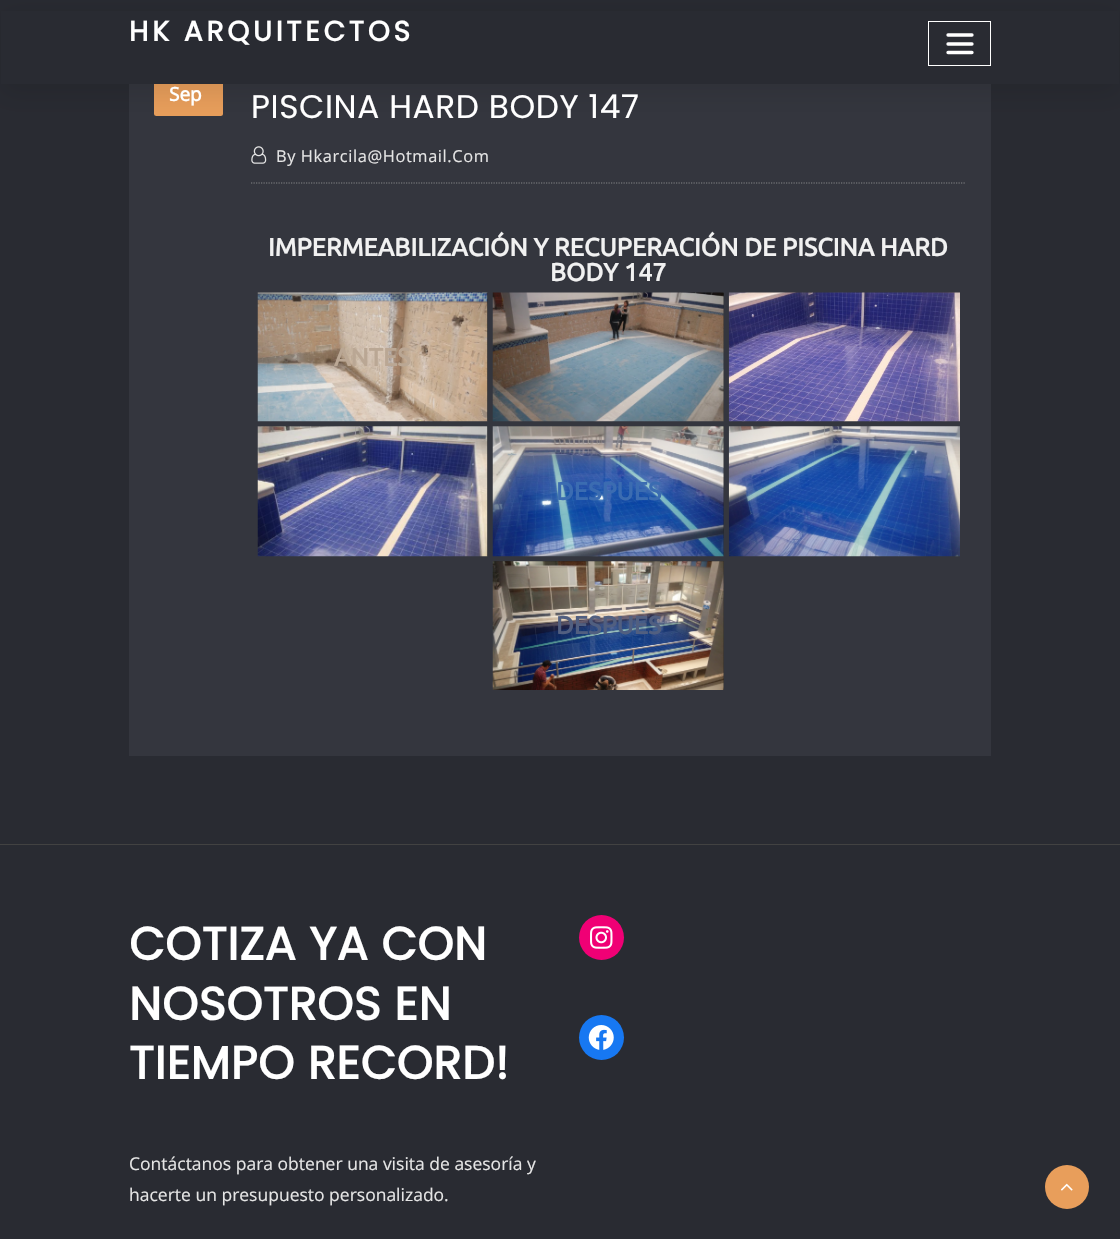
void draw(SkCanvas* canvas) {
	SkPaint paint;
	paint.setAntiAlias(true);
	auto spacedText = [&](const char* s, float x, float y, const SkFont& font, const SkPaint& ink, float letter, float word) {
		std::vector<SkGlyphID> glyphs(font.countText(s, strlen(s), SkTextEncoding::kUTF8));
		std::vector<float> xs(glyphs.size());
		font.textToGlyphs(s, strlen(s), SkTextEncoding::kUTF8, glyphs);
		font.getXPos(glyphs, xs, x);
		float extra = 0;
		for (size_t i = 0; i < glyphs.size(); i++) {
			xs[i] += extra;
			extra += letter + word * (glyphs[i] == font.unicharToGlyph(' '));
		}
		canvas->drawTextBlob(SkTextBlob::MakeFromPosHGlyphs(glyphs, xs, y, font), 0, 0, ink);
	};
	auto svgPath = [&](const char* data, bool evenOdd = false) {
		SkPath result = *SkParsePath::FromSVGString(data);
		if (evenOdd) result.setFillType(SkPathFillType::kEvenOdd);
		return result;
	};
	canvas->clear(0xff292b32);
	paint.setColor(0xff34363e);
	canvas->drawRect(SkRect::MakeXYWH(129, 84, 862, 672), paint);
	paint.setColor(0xffe89e5b);
	canvas->drawRoundRect(SkRect::MakeXYWH(154, 48, 69, 68), 2.5, 2.5, paint);
	paint.setColor(0x1a000000);
	paint.setMaskFilter(SkMaskFilter::MakeBlur(kNormal_SkBlurStyle, 12.5));
	canvas->drawRect(SkRect::MakeXYWH(0, 10, 1120, 84), paint);
	paint.setMaskFilter(nullptr);
	paint.setColor(0xff292b32);
	canvas->drawRect(SkRect::MakeXYWH(1, 11, 1118, 73), paint);
	SkFont f1(fontMgr->matchFamilyStyle("Poppins", SkFontStyle::Bold()), 28);
	f1.setSubpixel(true);
	paint.setColor(0xffffffff);
	spacedText("HK ARQUITECTOS", 129, 41, f1, paint, 3.75, 0);
	paint.setStroke(true);
	paint.setStrokeWidth(1);
	canvas->drawRect(SkRect::MakeXYWH(928.5, 21.5, 62, 44), paint);
	paint.setStrokeWidth(3.3);
	paint.setStrokeCap(SkPaint::kRound_Cap);
	canvas->drawPath(svgPath("M948 35H972M948 44H972M948 52.5H972"), paint);
	paint.setStroke(false);
	paint.setColor(0xff424242);
	canvas->drawRect(SkRect::MakeXYWH(0, 844, 1120, 1), paint);
	SkFont f2(fontMgr->matchFamilyStyle("Open Sans", SkFontStyle::Bold()), 19);
	f2.setSubpixel(true);
	paint.setColor(0xffffffff);
	canvas->drawString("Sep", 169, 101, f2, paint);
	SkFont f3(fontMgr->matchFamilyStyle("Poppins", SkFontStyle::Normal()), 32.75);
	f3.setSubpixel(true);
	spacedText("PISCINA HARD BODY 147", 251, 118, f3, paint, 0.6, 0);
	paint.setStroke(true);
	paint.setStrokeWidth(1.2);
	paint.setStrokeCap(SkPaint::kButt_Cap);
	paint.setColor(0xff828385);
	paint.setPathEffect(SkDashPathEffect::Make({{1.25f, 1.25f}}, 0));
	canvas->drawPath(svgPath("M251 183H966"), paint);
	paint.setPathEffect(nullptr);
	canvas->drawImageRect(SkImages::DeferredFromEncodedData(SkData::MakeFromFileName("img1.png")), SkRect::MakeXYWH(251, 146, 16, 18), SkSamplingOptions());
	SkFont f4(fontMgr->matchFamilyStyle("Open Sans", SkFontStyle::Normal()), 16.4);
	f4.setSubpixel(true);
	paint.setStroke(false);
	paint.setColor(0xffe5e5e5);
	spacedText("By Hkarcila@Hotmail.Com", 276, 162, f4, paint, 0.6, 0);
	SkFont f5(fontMgr->matchFamilyStyle("Ubuntu", SkFontStyle::Bold()), 25);
	f5.setSubpixel(true);
	paint.setColor(0xfff1f1f1);
	canvas->drawString("IMPERMEABILIZACIÓN Y RECUPERACIÓN DE PISCINA HARD", 268, 256, f5, paint);
	canvas->drawString("BODY 147", 550, 281, f5, paint);
	paint.setColor(0xff24262b);
	canvas->drawRect(SkRect::MakeXYWH(487, 293, 1, 128), paint);
	canvas->drawImageRect(SkImages::DeferredFromEncodedData(SkData::MakeFromFileName("img2.png")), SkRect::MakeXYWH(257, 292, 231, 130), SkSamplingOptions());
	paint.setColor(0xffbaa794);
	canvas->drawString("ANTES", 334, 366, f5, paint);
	paint.setColor(0xff24262b);
	canvas->drawRect(SkRect::MakeXYWH(723, 293, 1, 128), paint);
	canvas->drawImageRect(SkImages::DeferredFromEncodedData(SkData::MakeFromFileName("img3.png")), SkRect::MakeXYWH(492, 292, 232, 130), SkSamplingOptions());
	canvas->drawImageRect(SkImages::DeferredFromEncodedData(SkData::MakeFromFileName("img4.png")), SkRect::MakeXYWH(728, 292, 232, 130), SkSamplingOptions());
	canvas->drawRect(SkRect::MakeXYWH(258, 426, 230, 130), paint);
	canvas->drawImageRect(SkImages::DeferredFromEncodedData(SkData::MakeFromFileName("img5.png")), SkRect::MakeXYWH(257, 426, 231, 131), SkSamplingOptions());
	canvas->drawRect(SkRect::MakeXYWH(493, 426, 231, 130), paint);
	canvas->drawImageRect(SkImages::DeferredFromEncodedData(SkData::MakeFromFileName("img6.png")), SkRect::MakeXYWH(492, 426, 232, 131), SkSamplingOptions());
	paint.setColor(0xff3b6cb1);
	canvas->drawString("DESPUES", 556, 500, f5, paint);
	canvas->drawImageRect(SkImages::DeferredFromEncodedData(SkData::MakeFromFileName("img7.png")), SkRect::MakeXYWH(728, 426, 232, 131), SkSamplingOptions());
	paint.setColor(0xff24262b);
	canvas->drawRect(SkRect::MakeXYWH(493, 561, 231, 129), paint);
	canvas->drawImageRect(SkImages::DeferredFromEncodedData(SkData::MakeFromFileName("img8.png")), SkRect::MakeXYWH(492, 561, 232, 129), SkSamplingOptions());
	paint.setColor(0xff515f80);
	canvas->drawString("DESPUES", 556, 634, f5, paint);
	SkFont f6(fontMgr->matchFamilyStyle("Poppins", SkFontStyle::Bold()), 46);
	f6.setSubpixel(true);
	paint.setColor(0xffffffff);
	spacedText("COTIZA YA CON", 129, 960, f6, paint, 0.6, 0);
	spacedText("NOSOTROS EN", 129, 1020, f6, paint, 0.6, 0);
	spacedText("TIEMPO RECORD!", 129, 1079, f6, paint, 0.6, 0);
	SkFont f7(fontMgr->matchFamilyStyle("Open Sans", SkFontStyle::Normal()), 17.5);
	f7.setSubpixel(true);
	paint.setColor(0xffe5e5e5);
	canvas->drawString("Contáctanos para obtener una visita de asesoría y", 129, 1170, f7, paint);
	canvas->drawString("hacerte un presupuesto personalizado.", 129, 1201, f7, paint);
	paint.setColor(0xfff00075);
	canvas->drawCircle(601.5, 937.5, 22.5, paint);
	canvas->drawImageRect(SkImages::DeferredFromEncodedData(SkData::MakeFromFileName("img9.png")), SkRect::MakeXYWH(590, 926, 23, 23), SkSamplingOptions());
	paint.setColor(0xff1778f2);
	canvas->drawCircle(601.5, 1037.5, 22.5, paint);
	canvas->drawImageRect(SkImages::DeferredFromEncodedData(SkData::MakeFromFileName("img10.png")), SkRect::MakeXYWH(588, 1025, 26, 25), SkSamplingOptions());
	paint.setColor(0xffe89e5b);
	canvas->drawCircle(1067, 1187, 22, paint);
	canvas->drawImageRect(SkImages::DeferredFromEncodedData(SkData::MakeFromFileName("img11.png")), SkRect::MakeXYWH(1061, 1183, 12, 8), SkSamplingOptions());
}
